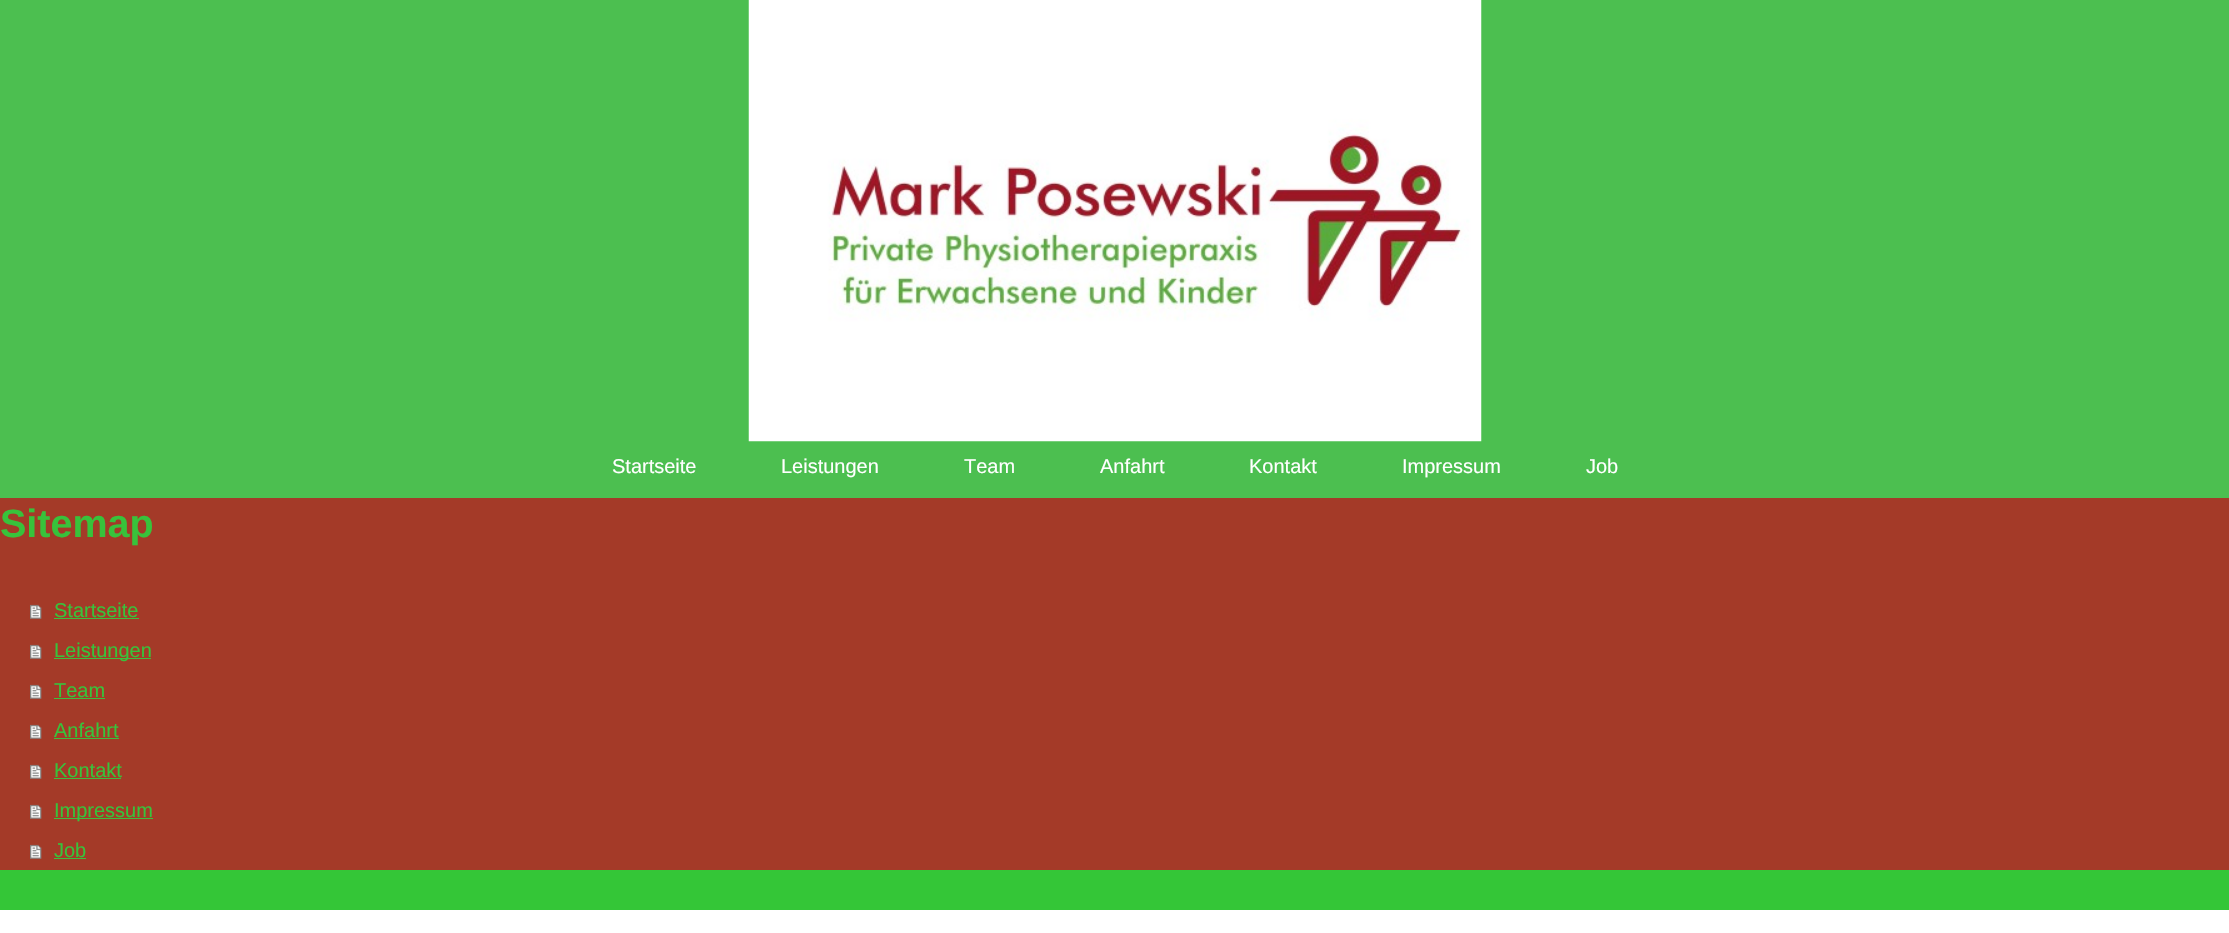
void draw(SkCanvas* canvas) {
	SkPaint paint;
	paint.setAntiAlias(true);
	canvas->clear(0xff34c637);
	paint.setColor(0xff4cbf50);
	canvas->drawRect(SkRect::MakeXYWH(0, 0, 2229, 498), paint);
	canvas->drawImageRect(SkImages::DeferredFromEncodedData(SkData::MakeFromFileName("img1.png")), SkRect::MakeXYWH(748, 0, 734, 442), SkSamplingOptions());
	SkFont f1(fontMgr->matchFamilyStyle("Liberation Sans", SkFontStyle::Normal()), 20);
	f1.setSubpixel(true);
	paint.setColor(0xffffffff);
	canvas->drawString("Startseite", 612, 473, f1, paint);
	canvas->drawString("Leistungen", 781, 473, f1, paint);
	canvas->drawString("Team", 964, 473, f1, paint);
	canvas->drawString("Anfahrt", 1100, 473, f1, paint);
	canvas->drawString("Kontakt", 1249, 473, f1, paint);
	canvas->drawString("Impressum", 1402, 473, f1, paint);
	canvas->drawString("Job", 1586, 473, f1, paint);
	paint.setColor(0xffa43a28);
	canvas->drawRect(SkRect::MakeXYWH(0, 498, 2229, 372), paint);
	SkFont f2(fontMgr->matchFamilyStyle("Liberation Sans", SkFontStyle::Bold()), 39.5);
	f2.setSubpixel(true);
	paint.setColor(0xff38c23b);
	canvas->drawString("Sitemap", 0, 537, f2, paint);
	canvas->drawImageRect(SkImages::DeferredFromEncodedData(SkData::MakeFromFileName("img2.png")), SkRect::MakeXYWH(30, 604, 12, 15), SkSamplingOptions());
	canvas->drawString("Startseite", 54, 617, f1, paint);
	canvas->drawRect(SkRect::MakeXYWH(54, 618, 85, 1), paint);
	canvas->drawImageRect(SkImages::DeferredFromEncodedData(SkData::MakeFromFileName("img2.png")), SkRect::MakeXYWH(30, 644, 12, 15), SkSamplingOptions());
	canvas->drawRect(SkRect::MakeXYWH(54, 658, 97, 1), paint);
	canvas->drawString("Leistungen", 54, 657, f1, paint);
	canvas->drawImageRect(SkImages::DeferredFromEncodedData(SkData::MakeFromFileName("img2.png")), SkRect::MakeXYWH(30, 684, 12, 15), SkSamplingOptions());
	canvas->drawString("Team", 54, 697, f1, paint);
	canvas->drawRect(SkRect::MakeXYWH(54, 698, 51, 1), paint);
	canvas->drawImageRect(SkImages::DeferredFromEncodedData(SkData::MakeFromFileName("img2.png")), SkRect::MakeXYWH(30, 724, 12, 15), SkSamplingOptions());
	canvas->drawString("Anfahrt", 54, 737, f1, paint);
	canvas->drawRect(SkRect::MakeXYWH(54, 738, 65, 1), paint);
	canvas->drawImageRect(SkImages::DeferredFromEncodedData(SkData::MakeFromFileName("img2.png")), SkRect::MakeXYWH(30, 764, 12, 15), SkSamplingOptions());
	canvas->drawString("Kontakt", 54, 777, f1, paint);
	canvas->drawRect(SkRect::MakeXYWH(54, 778, 67, 1), paint);
	canvas->drawImageRect(SkImages::DeferredFromEncodedData(SkData::MakeFromFileName("img2.png")), SkRect::MakeXYWH(30, 804, 12, 15), SkSamplingOptions());
	canvas->drawRect(SkRect::MakeXYWH(54, 818, 99, 1), paint);
	canvas->drawString("Impressum", 54, 817, f1, paint);
	canvas->drawImageRect(SkImages::DeferredFromEncodedData(SkData::MakeFromFileName("img2.png")), SkRect::MakeXYWH(30, 844, 12, 15), SkSamplingOptions());
	canvas->drawString("Job", 54, 857, f1, paint);
	canvas->drawRect(SkRect::MakeXYWH(54, 858, 32, 1), paint);
	paint.setColor(0xffffffff);
	canvas->drawRect(SkRect::MakeXYWH(0, 910, 2229, 23), paint);
}
